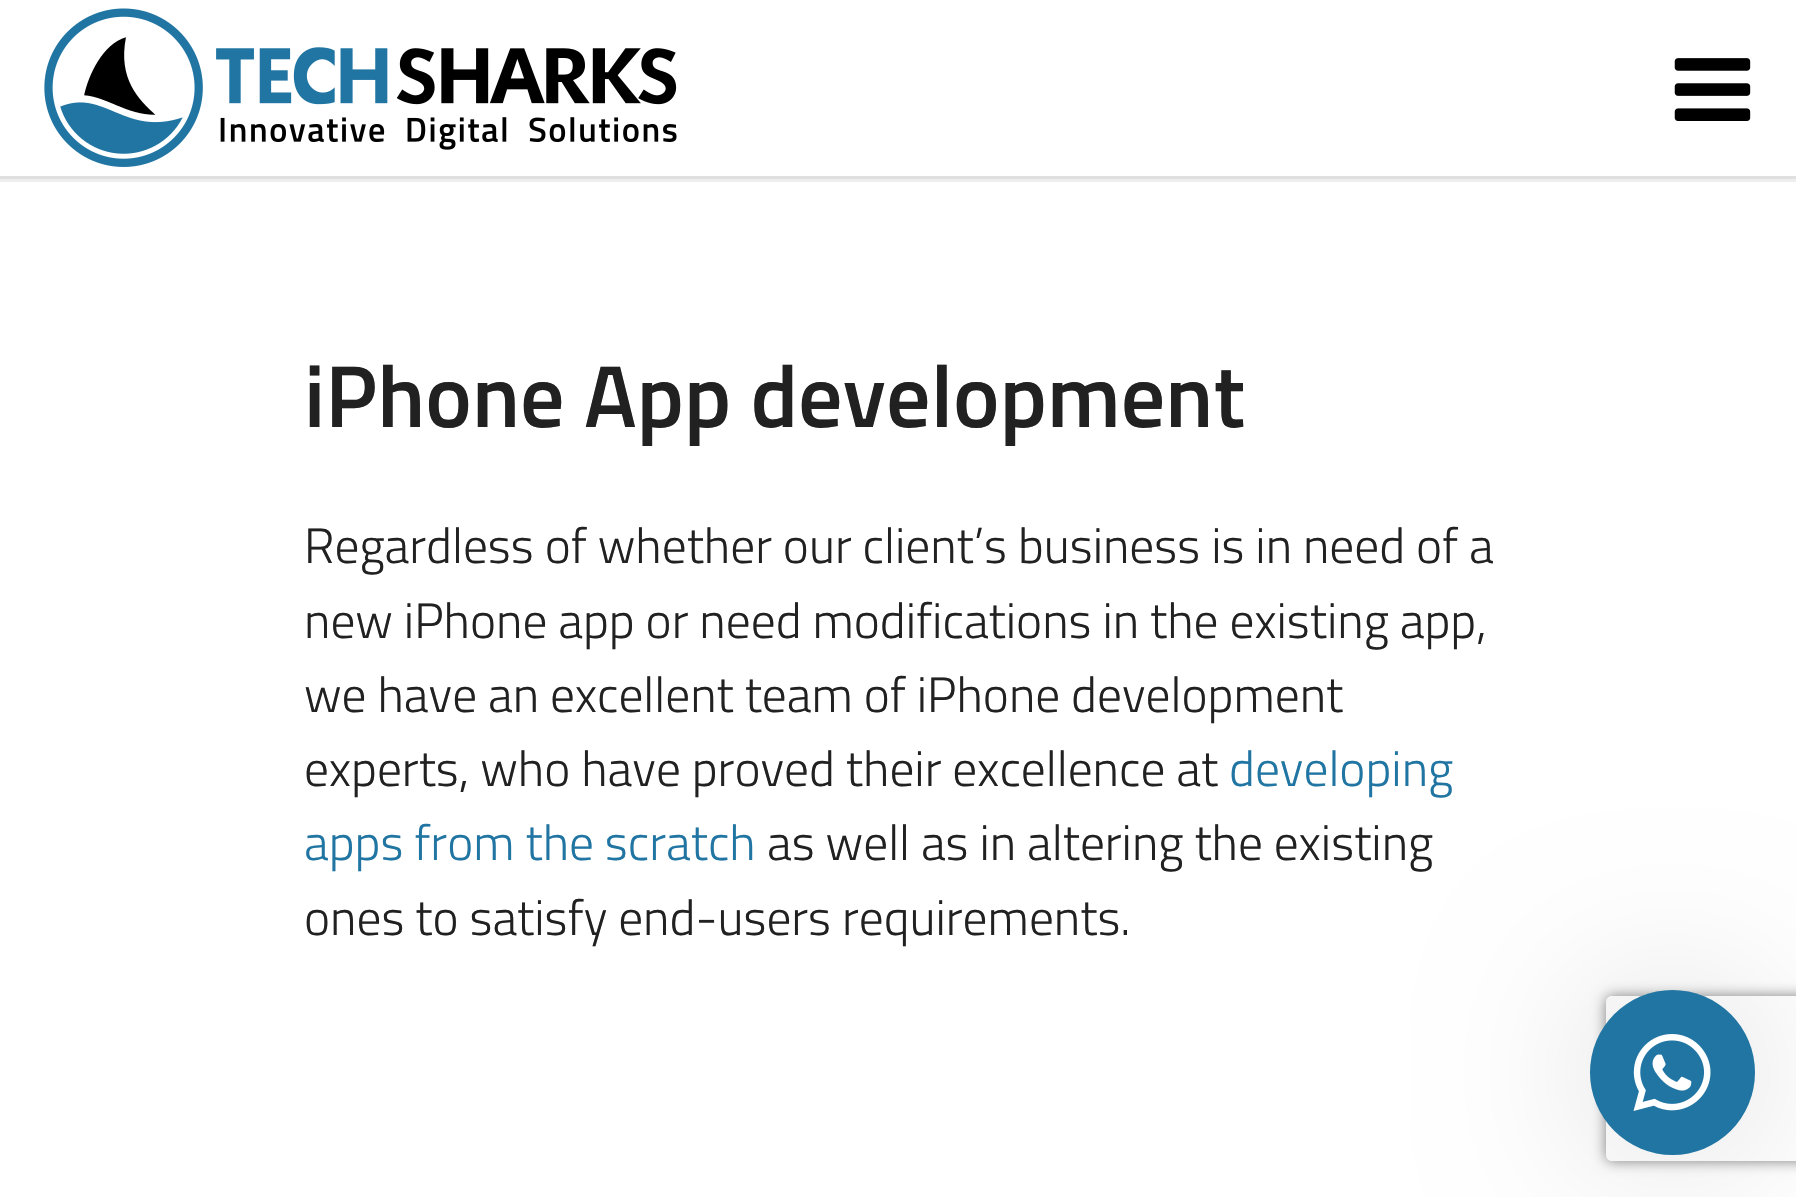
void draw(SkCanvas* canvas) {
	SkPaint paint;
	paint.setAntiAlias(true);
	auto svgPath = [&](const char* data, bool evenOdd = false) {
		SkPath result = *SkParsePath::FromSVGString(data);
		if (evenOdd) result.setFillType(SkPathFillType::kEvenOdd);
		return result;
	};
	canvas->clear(0xffffffff);
	paint.setColor(0xffeeeeee);
	canvas->drawRect(SkRect::MakeXYWH(0, 179, 1796, 3), paint);
	canvas->drawImageRect(SkImages::DeferredFromEncodedData(SkData::MakeFromFileName("img1.png")), SkRect::MakeXYWH(44, 8, 633, 159), SkSamplingOptions());
	canvas->drawImageRect(SkImages::DeferredFromEncodedData(SkData::MakeFromFileName("img2.png")), SkRect::MakeXYWH(1674, 58, 77, 63), SkSamplingOptions());
	paint.setColor(0xffe0e0e0);
	canvas->drawRect(SkRect::MakeXYWH(0, 176, 1796, 3), paint);
	SkFont f1(fontMgr->matchFamilyStyle("Titillium Web", SkFontStyle(600, SkFontStyle::kNormal_Width, SkFontStyle::kUpright_Slant)), 88);
	f1.setSubpixel(true);
	paint.setColor(0xff212121);
	canvas->drawString("iPhone App development", 304, 427, f1, paint);
	SkFont f2(fontMgr->matchFamilyStyle("Titillium Web", SkFontStyle(300, SkFontStyle::kNormal_Width, SkFontStyle::kUpright_Slant)), 49.5);
	f2.setSubpixel(true);
	canvas->drawString("Regardless of whether our client’s business is in need of a", 304, 563, f2, paint);
	canvas->drawString("new iPhone app or need modifications in the existing app,", 304, 638, f2, paint);
	canvas->drawString("we have an excellent team of iPhone development", 304, 712, f2, paint);
	canvas->drawString("experts, who have proved their excellence at", 304, 786, f2, paint);
	paint.setColor(0xff2175a3);
	canvas->drawString("developing", 1229, 786, f2, paint);
	canvas->drawString("apps from the scratch", 304, 860, f2, paint);
	paint.setColor(0xff212121);
	canvas->drawString("as well as in altering the existing", 767, 860, f2, paint);
	canvas->drawString("ones to satisfy end-users requirements.", 304, 935, f2, paint);
	paint.setColor(0x26000000);
	paint.setMaskFilter(SkMaskFilter::MakeBlur(kNormal_SkBlurStyle, 82.5));
	canvas->drawRoundRect(SkRect::MakeXYWH(1590, 990, 165, 165), 82.5, 82.5, paint);
	paint.setMaskFilter(nullptr);
	canvas->save();
	canvas->clipPath(svgPath("M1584 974H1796V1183H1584ZM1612 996H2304C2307.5 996 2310 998.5 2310 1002V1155C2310 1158.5 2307.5 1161 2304 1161H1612C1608.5 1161 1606 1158.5 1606 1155V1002C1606 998.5 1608.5 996 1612 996Z", true), true);
	paint.setColor(0xff808080);
	paint.setMaskFilter(SkMaskFilter::MakeBlur(kNormal_SkBlurStyle, 7));
	canvas->drawRoundRect(SkRect::MakeXYWH(1606, 996, 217, 165), 6, 6, paint);
	paint.setMaskFilter(nullptr);
	canvas->restore();
	paint.setColor(0xff2175a3);
	canvas->drawCircle(1672.5, 1072.5, 82.5, paint);
	canvas->drawImageRect(SkImages::DeferredFromEncodedData(SkData::MakeFromFileName("img3.png")), SkRect::MakeXYWH(1633, 1034, 78, 77), SkSamplingOptions());
}
